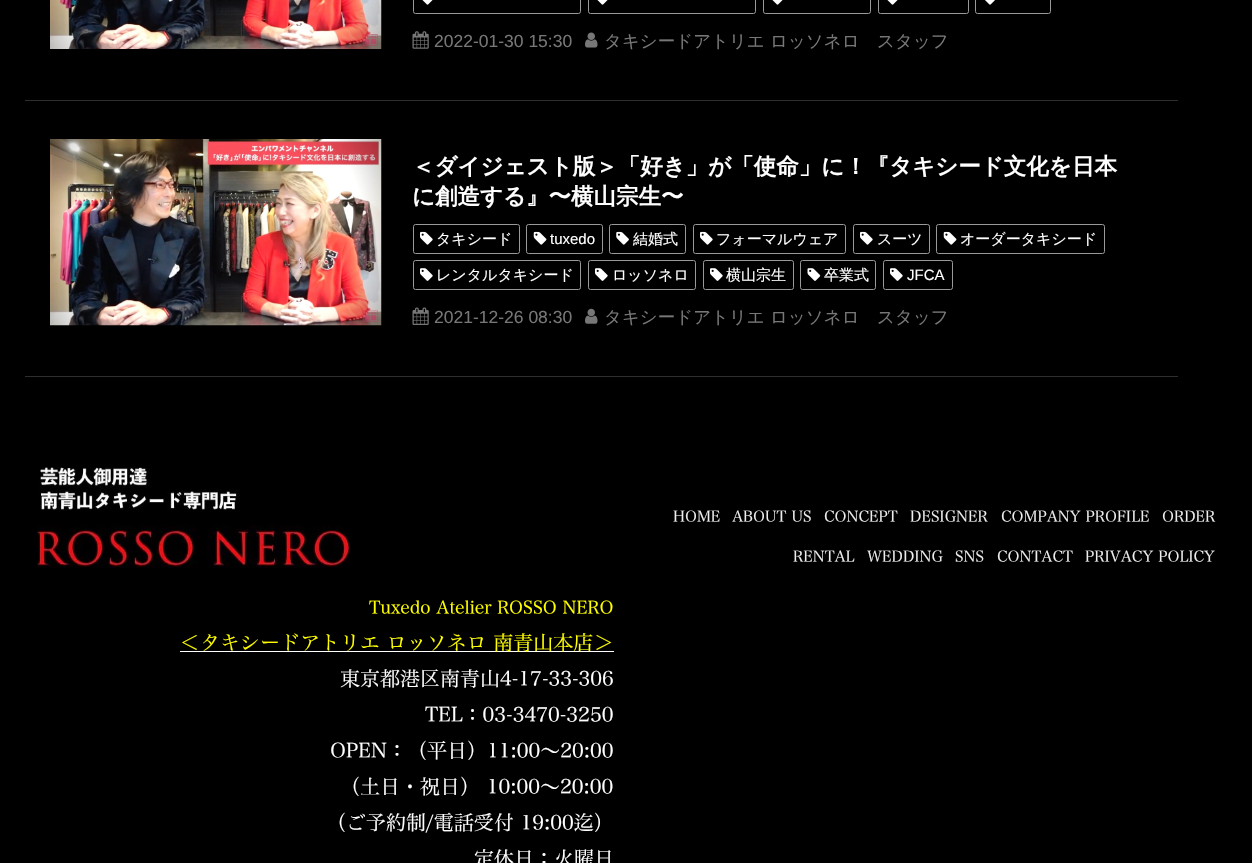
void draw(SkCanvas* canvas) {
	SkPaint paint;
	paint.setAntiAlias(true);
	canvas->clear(0xff000000);
	paint.setColor(0xff2e2e2e);
	canvas->drawRect(SkRect::MakeXYWH(25, 100, 1153, 1), paint);
	canvas->drawImageRect(SkImages::DeferredFromEncodedData(SkData::MakeFromFileName("img1.png")), SkRect::MakeXYWH(50, 0, 332, 49), SkSamplingOptions());
	paint.setStroke(true);
	paint.setStrokeWidth(1);
	paint.setColor(0xff999999);
	canvas->drawRoundRect(SkRect::MakeXYWH(413.5, -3.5, 167, 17), 2, 2, paint);
	canvas->drawImageRect(SkImages::DeferredFromEncodedData(SkData::MakeFromFileName("img2.png")), SkRect::MakeXYWH(422, 0, 11, 5), SkSamplingOptions());
	canvas->drawRoundRect(SkRect::MakeXYWH(588.5, -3.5, 167, 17), 2, 2, paint);
	canvas->drawImageRect(SkImages::DeferredFromEncodedData(SkData::MakeFromFileName("img2.png")), SkRect::MakeXYWH(597, 0, 11, 5), SkSamplingOptions());
	canvas->drawRoundRect(SkRect::MakeXYWH(763.5, -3.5, 107, 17), 2, 2, paint);
	canvas->drawImageRect(SkImages::DeferredFromEncodedData(SkData::MakeFromFileName("img2.png")), SkRect::MakeXYWH(772, 0, 11, 5), SkSamplingOptions());
	canvas->drawRoundRect(SkRect::MakeXYWH(878.5, -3.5, 90, 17), 2, 2, paint);
	canvas->drawImageRect(SkImages::DeferredFromEncodedData(SkData::MakeFromFileName("img2.png")), SkRect::MakeXYWH(887, 0, 11, 5), SkSamplingOptions());
	canvas->drawRoundRect(SkRect::MakeXYWH(975.5, -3.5, 75, 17), 2, 2, paint);
	canvas->drawImageRect(SkImages::DeferredFromEncodedData(SkData::MakeFromFileName("img3.png")), SkRect::MakeXYWH(985, 0, 10, 5), SkSamplingOptions());
	canvas->drawImageRect(SkImages::DeferredFromEncodedData(SkData::MakeFromFileName("img4.png")), SkRect::MakeXYWH(412, 31, 17, 18), SkSamplingOptions());
	SkFont f1(fontMgr->matchFamilyStyle("Liberation Sans", SkFontStyle::Normal()), 17.5);
	f1.setSubpixel(true);
	paint.setStroke(false);
	paint.setColor(0xff777777);
	canvas->drawString("2022-01-30 15:30", 434, 47, f1, paint);
	canvas->drawImageRect(SkImages::DeferredFromEncodedData(SkData::MakeFromFileName("img5.png")), SkRect::MakeXYWH(585, 32, 13, 16), SkSamplingOptions());
	SkFont f2(fontMgr->matchFamilyStyle("WenQuanYi Zen Hei", SkFontStyle(500, SkFontStyle::kNormal_Width, SkFontStyle::kUpright_Slant)), 17.5);
	f2.setSubpixel(true);
	canvas->drawString("タキシードアトリエ ロッソネロ　スタッフ", 604, 47, f2, paint);
	paint.setColor(0xff2e2e2e);
	canvas->drawRect(SkRect::MakeXYWH(25, 376, 1153, 1), paint);
	canvas->drawImageRect(SkImages::DeferredFromEncodedData(SkData::MakeFromFileName("img6.png")), SkRect::MakeXYWH(50, 139, 332, 187), SkSamplingOptions());
	SkFont f3(fontMgr->matchFamilyStyle("WenQuanYi Zen Hei", SkFontStyle::Bold()), 22.5);
	f3.setSubpixel(true);
	paint.setColor(0xffffffff);
	canvas->drawString("＜ダイジェスト版＞「好き」が「使命」に！『タキシード文化を日本", 412, 174, f3, paint);
	canvas->drawString("に創造する』〜横山宗生〜", 412, 204, f3, paint);
	paint.setStroke(true);
	paint.setColor(0xff999999);
	canvas->drawRoundRect(SkRect::MakeXYWH(413.5, 224.5, 106, 29), 2, 2, paint);
	canvas->drawImageRect(SkImages::DeferredFromEncodedData(SkData::MakeFromFileName("img7.png")), SkRect::MakeXYWH(420, 231, 13, 14), SkSamplingOptions());
	SkFont f4(fontMgr->matchFamilyStyle("WenQuanYi Zen Hei", SkFontStyle(500, SkFontStyle::kNormal_Width, SkFontStyle::kUpright_Slant)), 15);
	f4.setSubpixel(true);
	paint.setStroke(false);
	paint.setColor(0xffffffff);
	canvas->drawString("タキシード", 436, 244, f4, paint);
	paint.setStroke(true);
	paint.setColor(0xff999999);
	canvas->drawRoundRect(SkRect::MakeXYWH(526.5, 224.5, 76, 29), 2, 2, paint);
	canvas->drawImageRect(SkImages::DeferredFromEncodedData(SkData::MakeFromFileName("img8.png")), SkRect::MakeXYWH(533, 231, 14, 14), SkSamplingOptions());
	SkFont f5(fontMgr->matchFamilyStyle("Liberation Sans", SkFontStyle::Normal()), 15);
	f5.setSubpixel(true);
	paint.setStroke(false);
	paint.setColor(0xffffffff);
	canvas->drawString("tuxedo", 550, 244, f5, paint);
	paint.setStroke(true);
	paint.setColor(0xff999999);
	canvas->drawRoundRect(SkRect::MakeXYWH(609.5, 224.5, 76, 29), 2, 2, paint);
	canvas->drawImageRect(SkImages::DeferredFromEncodedData(SkData::MakeFromFileName("img9.png")), SkRect::MakeXYWH(616, 231, 13, 14), SkSamplingOptions());
	paint.setStroke(false);
	paint.setColor(0xffffffff);
	canvas->drawString("結婚式", 633, 244, f4, paint);
	paint.setStroke(true);
	paint.setColor(0xff999999);
	canvas->drawRoundRect(SkRect::MakeXYWH(693.5, 224.5, 152, 29), 2, 2, paint);
	canvas->drawImageRect(SkImages::DeferredFromEncodedData(SkData::MakeFromFileName("img7.png")), SkRect::MakeXYWH(700, 231, 13, 14), SkSamplingOptions());
	paint.setStroke(false);
	paint.setColor(0xffffffff);
	canvas->drawString("フォーマルウェア", 716, 244, f4, paint);
	paint.setStroke(true);
	paint.setColor(0xff999999);
	canvas->drawRoundRect(SkRect::MakeXYWH(853.5, 224.5, 76, 29), 2, 2, paint);
	canvas->drawImageRect(SkImages::DeferredFromEncodedData(SkData::MakeFromFileName("img7.png")), SkRect::MakeXYWH(860, 231, 13, 14), SkSamplingOptions());
	paint.setStroke(false);
	paint.setColor(0xffffffff);
	canvas->drawString("スーツ", 877, 244, f4, paint);
	paint.setStroke(true);
	paint.setColor(0xff999999);
	canvas->drawRoundRect(SkRect::MakeXYWH(936.5, 224.5, 168, 29), 2, 2, paint);
	canvas->drawImageRect(SkImages::DeferredFromEncodedData(SkData::MakeFromFileName("img8.png")), SkRect::MakeXYWH(943, 231, 14, 14), SkSamplingOptions());
	paint.setStroke(false);
	paint.setColor(0xffffffff);
	canvas->drawString("オーダータキシード", 960, 244, f4, paint);
	paint.setStroke(true);
	paint.setColor(0xff999999);
	canvas->drawRoundRect(SkRect::MakeXYWH(413.5, 260.5, 167, 29), 2, 2, paint);
	canvas->drawImageRect(SkImages::DeferredFromEncodedData(SkData::MakeFromFileName("img10.png")), SkRect::MakeXYWH(420, 268, 13, 13), SkSamplingOptions());
	paint.setStroke(false);
	paint.setColor(0xffffffff);
	canvas->drawString("レンタルタキシード", 436, 280, f4, paint);
	paint.setStroke(true);
	paint.setColor(0xff999999);
	canvas->drawRoundRect(SkRect::MakeXYWH(588.5, 260.5, 107, 29), 2, 2, paint);
	canvas->drawImageRect(SkImages::DeferredFromEncodedData(SkData::MakeFromFileName("img10.png")), SkRect::MakeXYWH(595, 268, 13, 13), SkSamplingOptions());
	paint.setStroke(false);
	paint.setColor(0xffffffff);
	canvas->drawString("ロッソネロ", 612, 280, f4, paint);
	paint.setStroke(true);
	paint.setColor(0xff999999);
	canvas->drawRoundRect(SkRect::MakeXYWH(703.5, 260.5, 90, 29), 2, 2, paint);
	canvas->drawImageRect(SkImages::DeferredFromEncodedData(SkData::MakeFromFileName("img10.png")), SkRect::MakeXYWH(710, 268, 13, 13), SkSamplingOptions());
	paint.setStroke(false);
	paint.setColor(0xffffffff);
	canvas->drawString("横山宗生", 726, 280, f4, paint);
	paint.setStroke(true);
	paint.setColor(0xff999999);
	canvas->drawRoundRect(SkRect::MakeXYWH(800.5, 260.5, 75, 29), 2, 2, paint);
	canvas->drawImageRect(SkImages::DeferredFromEncodedData(SkData::MakeFromFileName("img11.png")), SkRect::MakeXYWH(807, 268, 14, 13), SkSamplingOptions());
	paint.setStroke(false);
	paint.setColor(0xffffffff);
	canvas->drawString("卒業式", 824, 280, f4, paint);
	paint.setStroke(true);
	paint.setColor(0xff999999);
	canvas->drawRoundRect(SkRect::MakeXYWH(883.5, 260.5, 69, 29), 2, 2, paint);
	canvas->drawImageRect(SkImages::DeferredFromEncodedData(SkData::MakeFromFileName("img10.png")), SkRect::MakeXYWH(890, 268, 13, 13), SkSamplingOptions());
	paint.setStroke(false);
	paint.setColor(0xffffffff);
	canvas->drawString("JFCA", 907, 280, f5, paint);
	canvas->drawImageRect(SkImages::DeferredFromEncodedData(SkData::MakeFromFileName("img12.png")), SkRect::MakeXYWH(412, 307, 17, 18), SkSamplingOptions());
	paint.setColor(0xff777777);
	canvas->drawString("2021-12-26 08:30", 434, 323, f1, paint);
	canvas->drawImageRect(SkImages::DeferredFromEncodedData(SkData::MakeFromFileName("img13.png")), SkRect::MakeXYWH(585, 308, 13, 16), SkSamplingOptions());
	canvas->drawString("タキシードアトリエ ロッソネロ　スタッフ", 604, 323, f2, paint);
	SkFont f6(fontMgr->matchFamilyStyle("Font", SkFontStyle(300, SkFontStyle::kNormal_Width, SkFontStyle::kUpright_Slant)), 15);
	f6.setSubpixel(true);
	paint.setColor(0xffeeeeee);
	canvas->drawString("HOME", 673, 522, f6, paint);
	canvas->drawString("ABOUT US", 732, 522, f6, paint);
	canvas->drawString("CONCEPT", 824, 522, f6, paint);
	canvas->drawString("DESIGNER", 910, 522, f6, paint);
	canvas->drawString("COMPANY PROFILE", 1001, 522, f6, paint);
	canvas->drawString("ORDER", 1162, 522, f6, paint);
	canvas->drawString("RENTAL", 793, 562, f6, paint);
	canvas->drawString("WEDDING", 867, 562, f6, paint);
	canvas->drawString("SNS", 955, 562, f6, paint);
	canvas->drawString("CONTACT", 997, 562, f6, paint);
	canvas->drawString("PRIVACY POLICY", 1085, 562, f6, paint);
	canvas->drawImageRect(SkImages::DeferredFromEncodedData(SkData::MakeFromFileName("img14.png")), SkRect::MakeXYWH(37, 467, 313, 101), SkSamplingOptions());
	SkFont f7(fontMgr->matchFamilyStyle("Font", SkFontStyle(300, SkFontStyle::kNormal_Width, SkFontStyle::kUpright_Slant)), 17.5);
	f7.setSubpixel(true);
	paint.setColor(0xffffff00);
	canvas->drawString("Tuxedo Atelier ROSSO NERO", 369, 614, f7, paint);
	paint.setColor(0xffffffff);
	canvas->drawRect(SkRect::MakeXYWH(180, 651, 434, 1), paint);
	SkFont f8(fontMgr->matchFamilyStyle("Font", SkFontStyle(300, SkFontStyle::kNormal_Width, SkFontStyle::kUpright_Slant)), 20);
	f8.setSubpixel(true);
	paint.setColor(0xffffff00);
	canvas->drawString("＜タキシードアトリエ ロッソネロ 南青山本店＞", 180, 650, f8, paint);
	paint.setColor(0xffffffff);
	canvas->drawString("東京都港区南青山4-17-33-306", 340, 686, f8, paint);
	canvas->drawString("TEL：03-3470-3250", 425, 722, f8, paint);
	canvas->drawString("OPEN：（平日）11:00～20:00", 330, 758, f8, paint);
	canvas->drawString("（土日・祝日） 10:00〜20:00", 340, 794, f8, paint);
	canvas->drawString("（ご予約制/電話受付 19:00迄）", 326, 830, f8, paint);
	canvas->drawString("定休日：火曜日", 474, 866, f8, paint);
}
